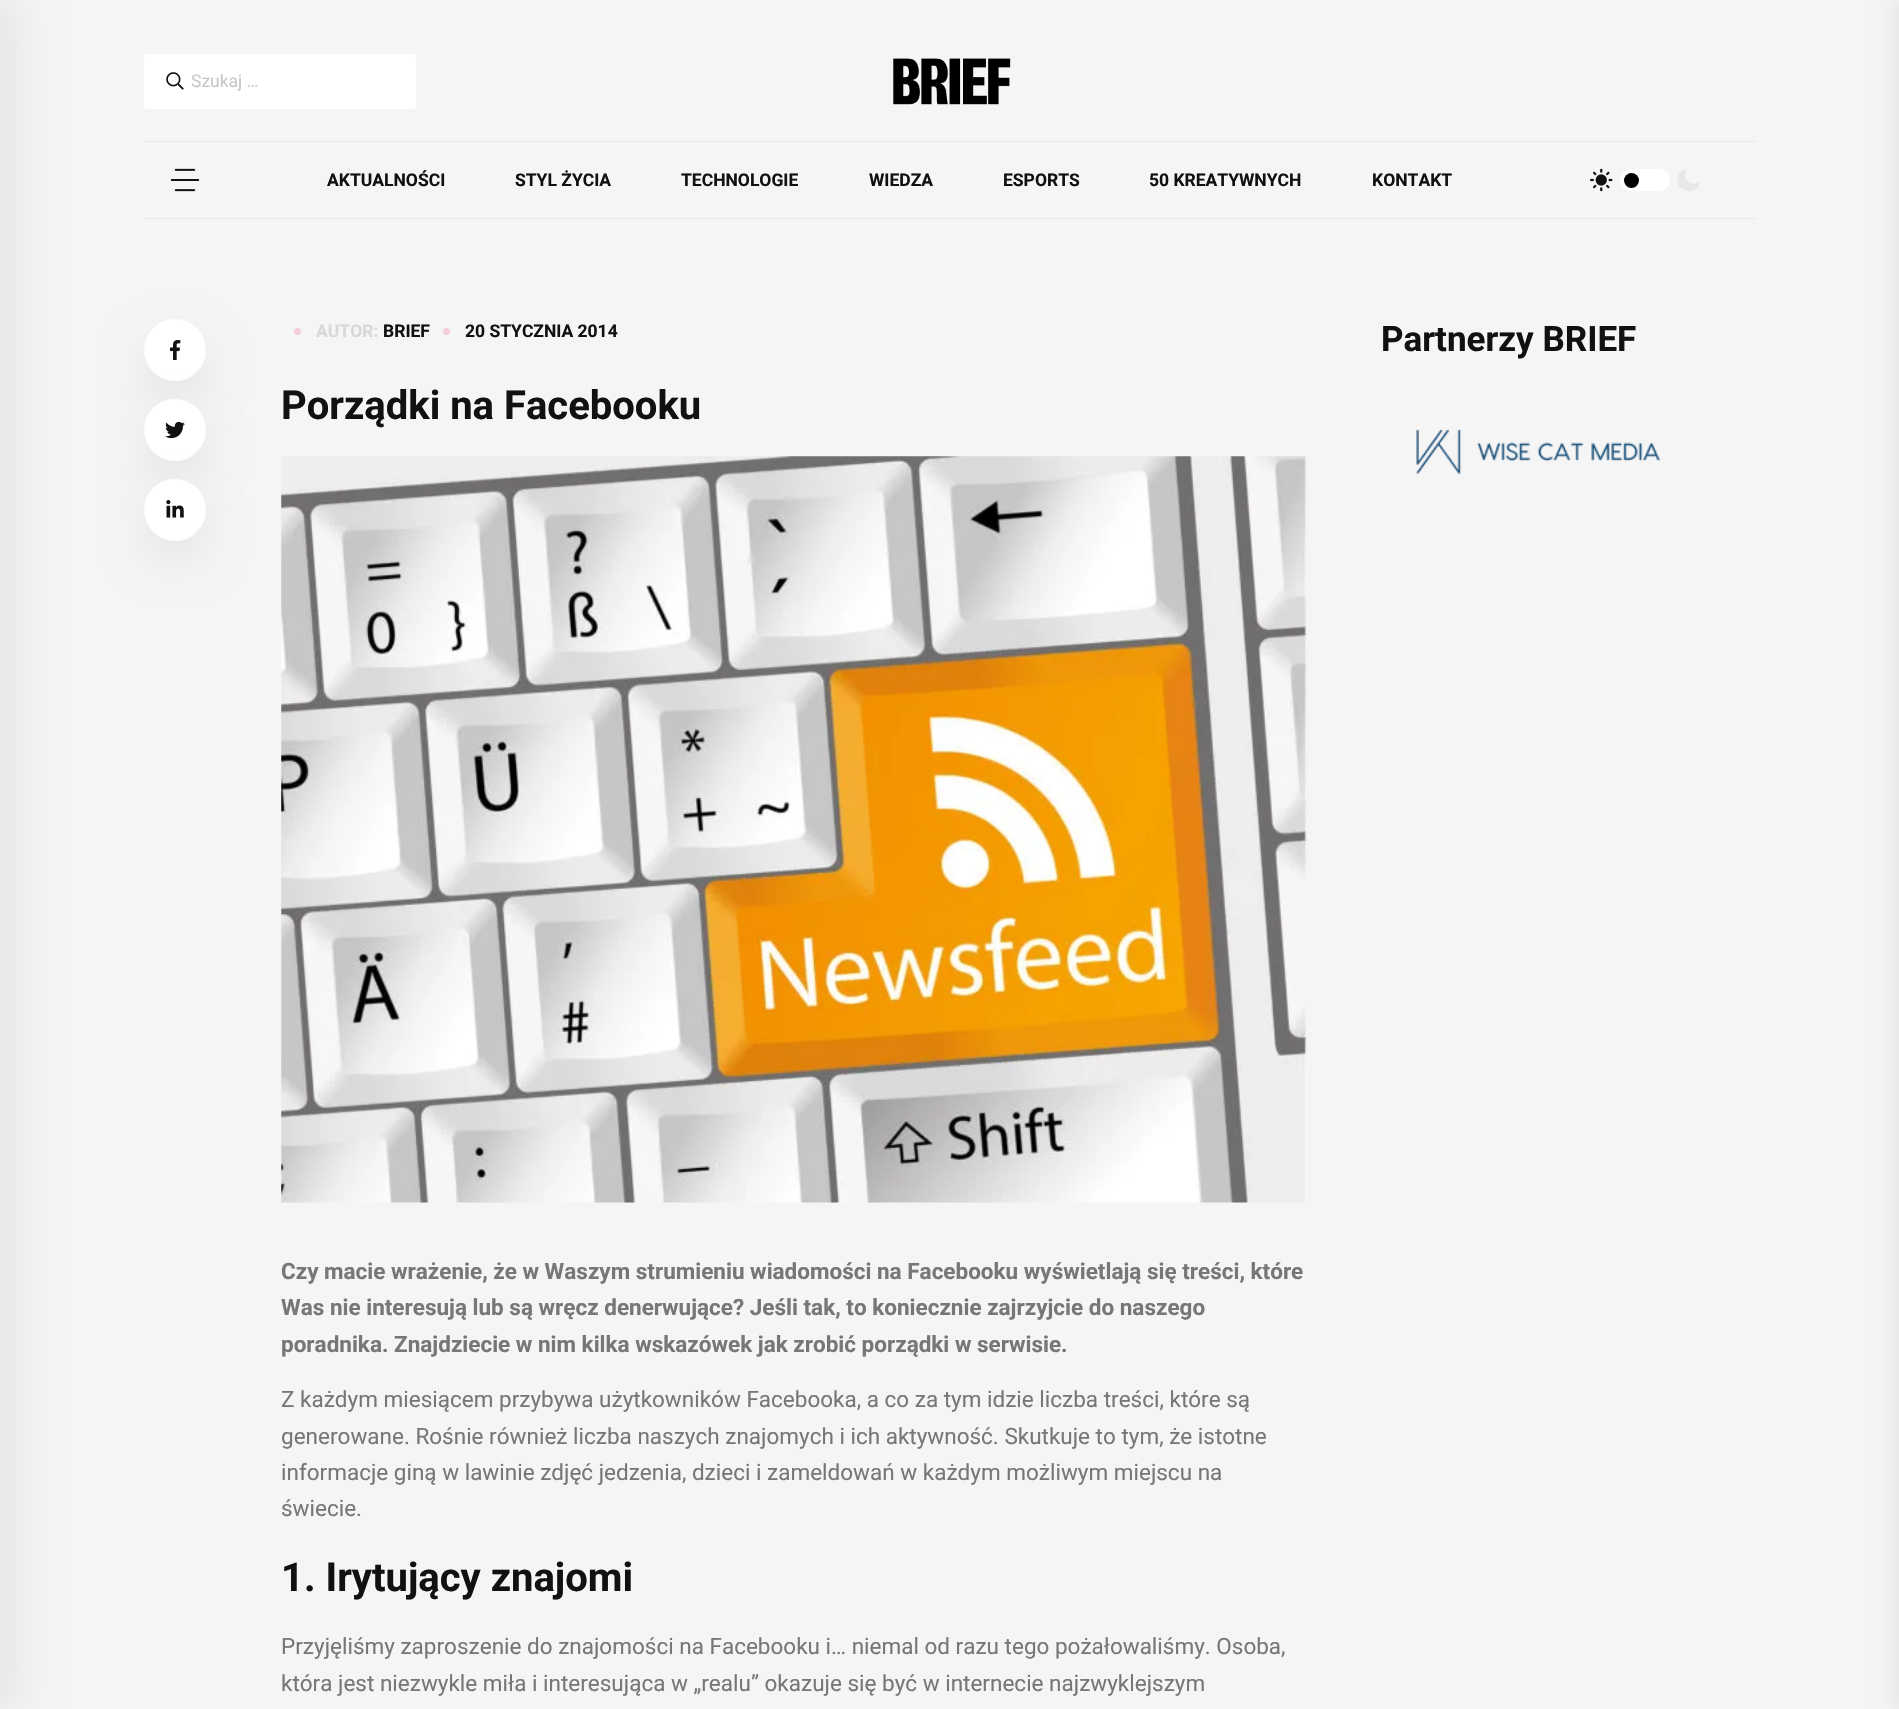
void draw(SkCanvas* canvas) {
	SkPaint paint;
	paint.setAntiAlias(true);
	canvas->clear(0xfff5f5f5);
	paint.setColor(0x0f000000);
	paint.setMaskFilter(SkMaskFilter::MakeBlur(kNormal_SkBlurStyle, 20));
	canvas->drawRect(SkRect::MakeXYWH(-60, 0, 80, 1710), paint);
	paint.setMaskFilter(nullptr);
	paint.setColor(0xffffffff);
	canvas->drawRoundRect(SkRect::MakeXYWH(144, 54, 272, 55), 4, 4, paint);
	canvas->drawImageRect(SkImages::DeferredFromEncodedData(SkData::MakeFromFileName("img1.png")), SkRect::MakeXYWH(166, 72, 18, 18), SkSamplingOptions());
	SkFont f1(fontMgr->matchFamilyStyle("Roboto", SkFontStyle::Normal()), 17.5);
	f1.setSubpixel(true);
	paint.setColor(0xffc7c7c7);
	canvas->drawString("Szukaj …", 191, 87, f1, paint);
	canvas->drawImageRect(SkImages::DeferredFromEncodedData(SkData::MakeFromFileName("img2.png")), SkRect::MakeXYWH(893, 58, 118, 47), SkSamplingOptions());
	paint.setColor(0xffe8e8e8);
	canvas->drawRect(SkRect::MakeXYWH(144, 141, 1612, 1), paint);
	canvas->drawRect(SkRect::MakeXYWH(144, 218, 1612, 1), paint);
	canvas->drawImageRect(SkImages::DeferredFromEncodedData(SkData::MakeFromFileName("img3.png")), SkRect::MakeXYWH(170, 168, 30, 24), SkSamplingOptions());
	SkFont f2(fontMgr->matchFamilyStyle("Roboto", SkFontStyle::Bold()), 17.5);
	f2.setSubpixel(true);
	paint.setColor(0xff111111);
	canvas->drawString("AKTUALNOŚCI", 327, 186, f2, paint);
	canvas->drawString("STYL ŻYCIA", 515, 186, f2, paint);
	canvas->drawString("TECHNOLOGIE", 681, 186, f2, paint);
	canvas->drawString("WIEDZA", 869, 186, f2, paint);
	canvas->drawString("ESPORTS", 1003, 186, f2, paint);
	canvas->drawString("50 KREATYWNYCH", 1149, 186, f2, paint);
	canvas->drawString("KONTAKT", 1372, 186, f2, paint);
	canvas->drawImageRect(SkImages::DeferredFromEncodedData(SkData::MakeFromFileName("img4.png")), SkRect::MakeXYWH(1590, 168, 23, 24), SkSamplingOptions());
	paint.setColor(0xffffffff);
	canvas->drawRoundRect(SkRect::MakeXYWH(1620, 169, 50, 22), 11, 11, paint);
	paint.setColor(0xff000000);
	canvas->drawCircle(1631.5, 180.5, 7.5, paint);
	canvas->drawImageRect(SkImages::DeferredFromEncodedData(SkData::MakeFromFileName("img5.png")), SkRect::MakeXYWH(1677, 169, 23, 22), SkSamplingOptions());
	paint.setColor(0x0f000000);
	paint.setMaskFilter(SkMaskFilter::MakeBlur(kNormal_SkBlurStyle, 9));
	canvas->drawRect(SkRect::MakeXYWH(1893, 0, 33, 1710), paint);
	paint.setMaskFilter(nullptr);
	paint.setMaskFilter(SkMaskFilter::MakeBlur(kNormal_SkBlurStyle, 20));
	canvas->drawRoundRect(SkRect::MakeXYWH(144, 339, 62, 62), 31, 31, paint);
	paint.setMaskFilter(nullptr);
	paint.setColor(0xffffffff);
	canvas->drawCircle(175, 350, 31, paint);
	paint.setColor(0x0f000000);
	paint.setMaskFilter(SkMaskFilter::MakeBlur(kNormal_SkBlurStyle, 20));
	canvas->drawRoundRect(SkRect::MakeXYWH(144, 419, 62, 62), 31, 31, paint);
	paint.setMaskFilter(nullptr);
	canvas->drawImageRect(SkImages::DeferredFromEncodedData(SkData::MakeFromFileName("img6.png")), SkRect::MakeXYWH(170, 340, 11, 20), SkSamplingOptions());
	paint.setColor(0xffffffff);
	canvas->drawCircle(175, 430, 31, paint);
	paint.setColor(0x0f000000);
	paint.setMaskFilter(SkMaskFilter::MakeBlur(kNormal_SkBlurStyle, 20));
	canvas->drawRoundRect(SkRect::MakeXYWH(144, 499, 62, 62), 31, 31, paint);
	paint.setMaskFilter(nullptr);
	canvas->drawImageRect(SkImages::DeferredFromEncodedData(SkData::MakeFromFileName("img7.png")), SkRect::MakeXYWH(165, 421, 20, 18), SkSamplingOptions());
	paint.setColor(0xffffffff);
	canvas->drawCircle(175, 510, 31, paint);
	canvas->drawImageRect(SkImages::DeferredFromEncodedData(SkData::MakeFromFileName("img8.png")), SkRect::MakeXYWH(166, 500, 18, 18), SkSamplingOptions());
	paint.setColor(0xfff7ced8);
	canvas->drawCircle(297.5, 331.5, 3.5, paint);
	paint.setColor(0xffd8d8d8);
	canvas->drawString("AUTOR:", 316, 337, f2, paint);
	paint.setColor(0xff111111);
	canvas->drawString("BRIEF", 383, 337, f2, paint);
	paint.setColor(0xfff7ced8);
	canvas->drawCircle(446.5, 331.5, 3.5, paint);
	paint.setColor(0xff111111);
	canvas->drawString("20 STYCZNIA 2014", 465, 337, f2, paint);
	SkFont f3(fontMgr->matchFamilyStyle("Roboto", SkFontStyle::Bold()), 40);
	f3.setSubpixel(true);
	canvas->drawString("Porządki na Facebooku", 281, 419, f3, paint);
	canvas->drawImageRect(SkImages::DeferredFromEncodedData(SkData::MakeFromFileName("img9.png")), SkRect::MakeXYWH(281, 456, 1026, 747), SkSamplingOptions());
	SkFont f4(fontMgr->matchFamilyStyle("Roboto", SkFontStyle::Bold()), 22.5);
	f4.setSubpixel(true);
	paint.setColor(0xff777777);
	canvas->drawString("Czy macie wrażenie, że w Waszym strumieniu wiadomości na Facebooku wyświetlają się treści, które", 281, 1279, f4, paint);
	canvas->drawString("Was nie interesują lub są wręcz denerwujące? Jeśli tak, to koniecznie zajrzyjcie do naszego", 281, 1315, f4, paint);
	canvas->drawString("poradnika. Znajdziecie w nim kilka wskazówek jak zrobić porządki w serwisie.", 281, 1352, f4, paint);
	SkFont f5(fontMgr->matchFamilyStyle("Roboto", SkFontStyle::Normal()), 22.5);
	f5.setSubpixel(true);
	canvas->drawString("Z każdym miesiącem przybywa użytkowników Facebooka, a co za tym idzie liczba treści, które są", 281, 1407, f5, paint);
	canvas->drawString("generowane. Rośnie również liczba naszych znajomych i ich aktywność. Skutkuje to tym, że istotne", 281, 1444, f5, paint);
	canvas->drawString("informacje giną w lawinie zdjęć jedzenia, dzieci i zameldowań w każdym możliwym miejscu na", 281, 1480, f5, paint);
	canvas->drawString("świecie.", 281, 1516, f5, paint);
	paint.setColor(0xff111111);
	canvas->drawString("1. Irytujący znajomi", 281, 1591, f3, paint);
	paint.setColor(0xff777777);
	canvas->drawString("Przyjęliśmy zaproszenie do znajomości na Facebooku i… niemal od razu tego pożałowaliśmy. Osoba,", 281, 1654, f5, paint);
	canvas->drawString("która jest niezwykle miła i interesująca w „realu” okazuje się być w internecie najzwyklejszym", 281, 1691, f5, paint);
	SkFont f6(fontMgr->matchFamilyStyle("Roboto", SkFontStyle::Bold()), 35);
	f6.setSubpixel(true);
	paint.setColor(0xff111111);
	canvas->drawString("Partnerzy BRIEF", 1381, 351, f6, paint);
	canvas->drawImageRect(SkImages::DeferredFromEncodedData(SkData::MakeFromFileName("img10.png")), SkRect::MakeXYWH(1416, 429, 245, 45), SkSamplingOptions());
}
